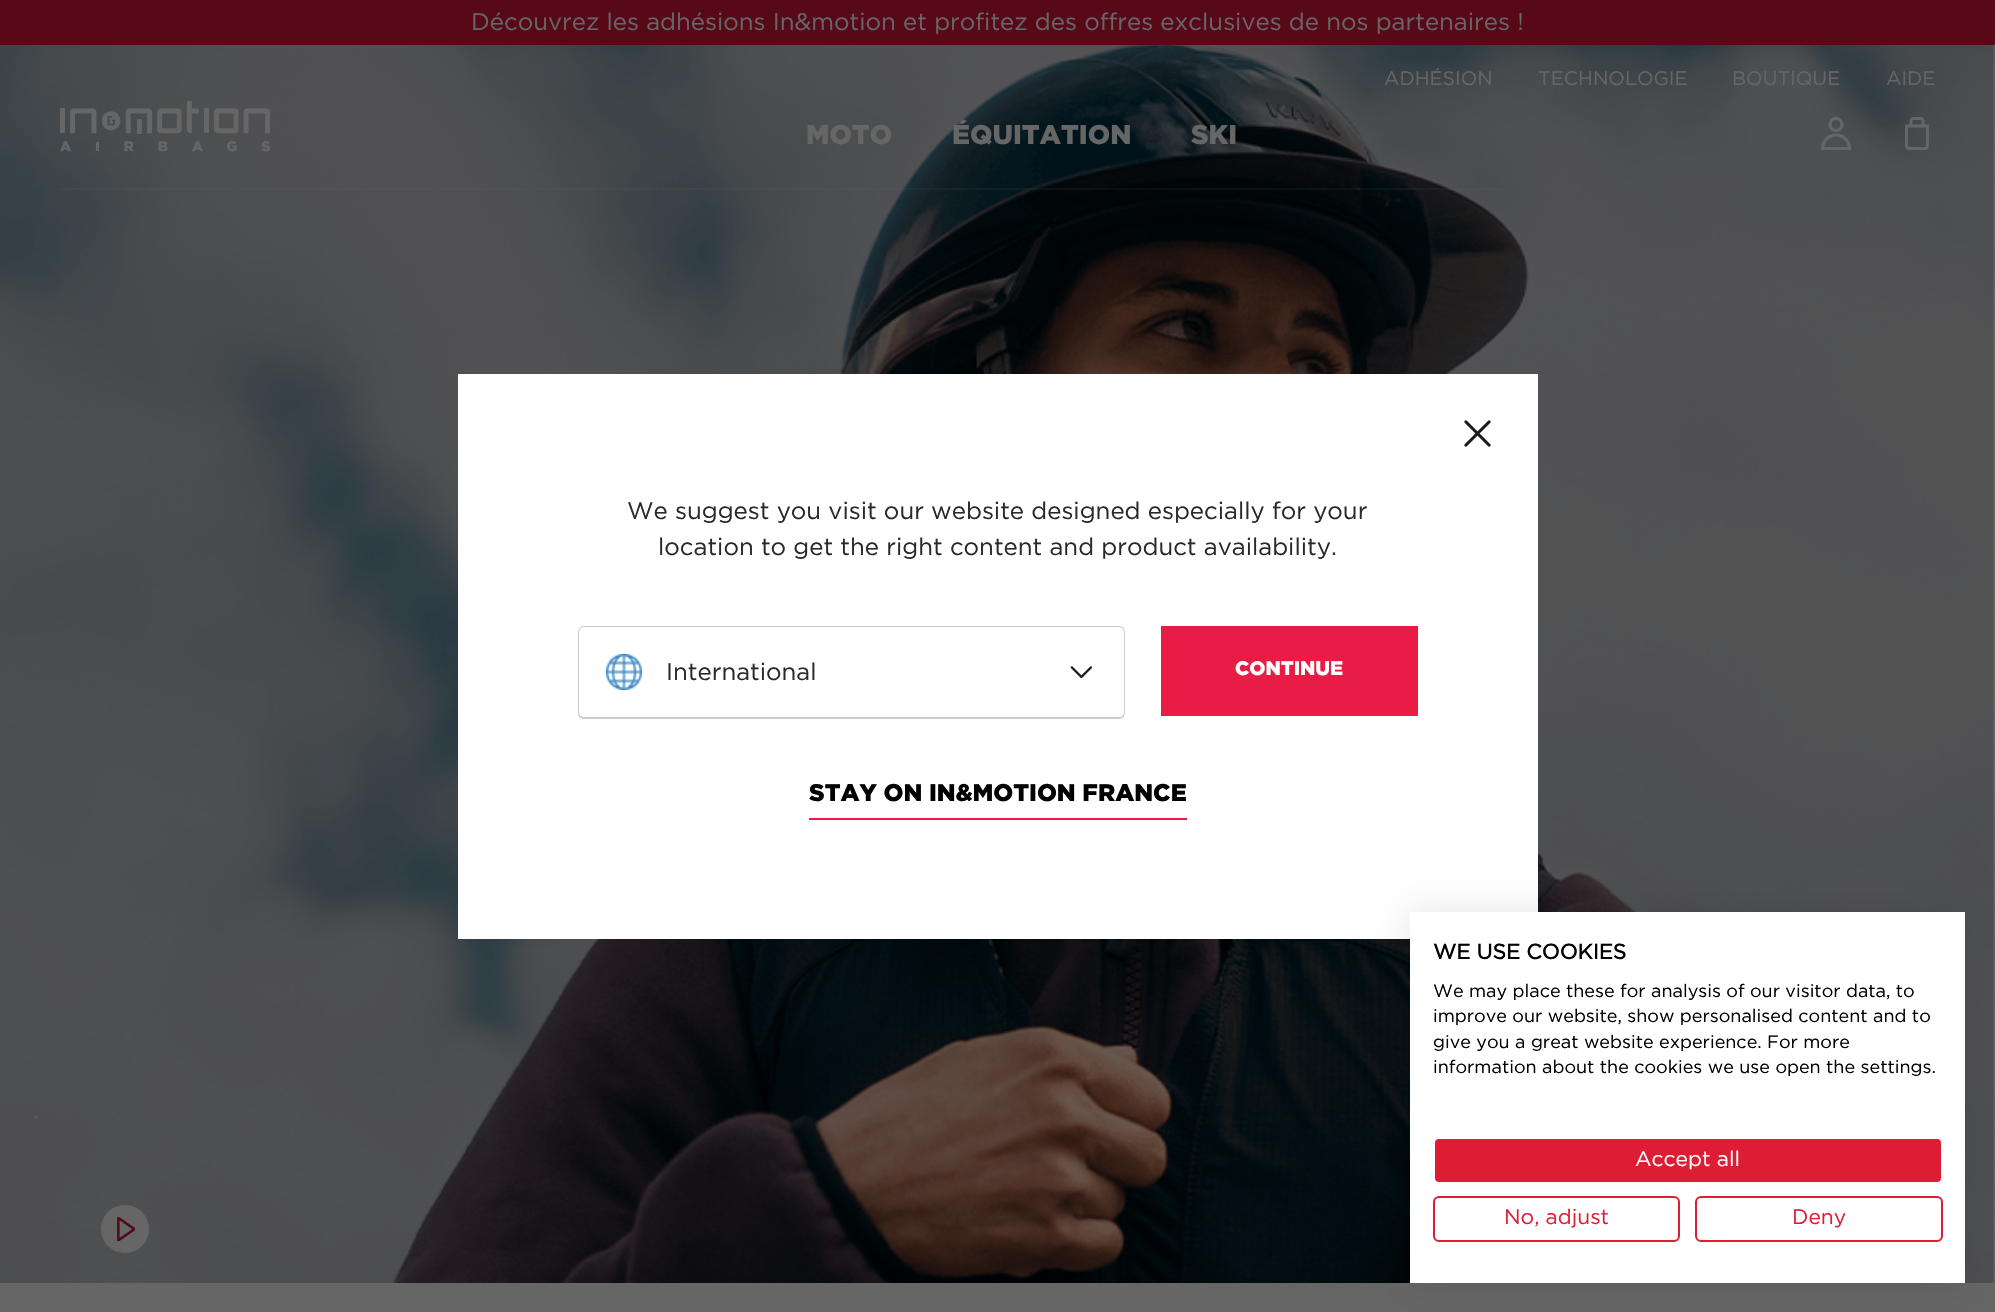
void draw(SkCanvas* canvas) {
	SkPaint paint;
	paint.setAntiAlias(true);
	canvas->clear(0xffffffff);
	paint.setColor(0xff580918);
	canvas->drawRect(SkRect::MakeXYWH(0, 0, 1995, 45), paint);
	SkFont f1(fontMgr->matchFamilyStyle("Gotham", SkFontStyle::Normal()), 24);
	f1.setSubpixel(true);
	paint.setColor(0xff666666);
	canvas->drawString("Découvrez les adhésions In&motion et profitez des offres exclusives de nos partenaires !", 471, 30, f1, paint);
	canvas->drawImageRect(SkImages::DeferredFromEncodedData(SkData::MakeFromFileName("img4.png")), SkRect::MakeXYWH(0, 45, 1995, 1238), SkSamplingOptions());
	paint.setColor(0x1a666666);
	canvas->drawRect(SkRect::MakeXYWH(60, 188, 1444, 2), paint);
	canvas->drawImageRect(SkImages::DeferredFromEncodedData(SkData::MakeFromFileName("img1.png")), SkRect::MakeXYWH(60, 101, 210, 51), SkSamplingOptions());
	SkFont f2(fontMgr->matchFamilyStyle("Gotham", SkFontStyle::Normal()), 19.5);
	f2.setSubpixel(true);
	paint.setColor(0xff666666);
	canvas->drawString("ADHÉSION", 1384, 85, f2, paint);
	canvas->drawString("TECHNOLOGIE", 1538, 85, f2, paint);
	canvas->drawString("BOUTIQUE", 1732, 85, f2, paint);
	canvas->drawString("AIDE", 1886, 85, f2, paint);
	SkFont f3(fontMgr->matchFamilyStyle("Gotham", SkFontStyle(900, SkFontStyle::kNormal_Width, SkFontStyle::kUpright_Slant)), 27);
	f3.setSubpixel(true);
	canvas->drawString("MOTO", 806, 144, f3, paint);
	canvas->drawString("ÉQUITATION", 952, 144, f3, paint);
	canvas->drawString("SKI", 1191, 144, f3, paint);
	canvas->drawImageRect(SkImages::DeferredFromEncodedData(SkData::MakeFromFileName("img2.png")), SkRect::MakeXYWH(1821, 117, 30, 33), SkSamplingOptions());
	canvas->drawImageRect(SkImages::DeferredFromEncodedData(SkData::MakeFromFileName("img3.png")), SkRect::MakeXYWH(1905, 117, 24, 33), SkSamplingOptions());
	canvas->drawCircle(125, 1229, 24, paint);
	canvas->drawImageRect(SkImages::DeferredFromEncodedData(SkData::MakeFromFileName("img5.png")), SkRect::MakeXYWH(117, 1217, 18, 24), SkSamplingOptions());
	canvas->drawRect(SkRect::MakeXYWH(0, 1283, 1995, 29), paint);
	paint.setColor(0xffffffff);
	canvas->drawRect(SkRect::MakeXYWH(458, 374, 1080, 565), paint);
	canvas->drawImageRect(SkImages::DeferredFromEncodedData(SkData::MakeFromFileName("img6.png")), SkRect::MakeXYWH(1464, 420, 27, 27), SkSamplingOptions());
	paint.setColor(0xff292929);
	canvas->drawString("We suggest you visit our website designed especially for your", 627, 519, f1, paint);
	canvas->drawString("location to get the right content and product availability.", 658, 555, f1, paint);
	paint.setStroke(true);
	paint.setStrokeWidth(2);
	paint.setColor(0xffcccccc);
	canvas->drawRoundRect(SkRect::MakeXYWH(579, 627, 545, 91), 5, 5, paint);
	paint.setStroke(false);
	paint.setColor(0xffffffff);
	canvas->drawRoundRect(SkRect::MakeXYWH(579, 627, 545, 90), 5, 5, paint);
	canvas->drawImageRect(SkImages::DeferredFromEncodedData(SkData::MakeFromFileName("img7.png")), SkRect::MakeXYWH(606, 654, 36, 36), SkSamplingOptions());
	paint.setColor(0xff292929);
	canvas->drawString("International", 666, 680, f1, paint);
	canvas->drawImageRect(SkImages::DeferredFromEncodedData(SkData::MakeFromFileName("img8.png")), SkRect::MakeXYWH(1070, 666, 22, 13), SkSamplingOptions());
	paint.setColor(0xffe91c46);
	canvas->drawRect(SkRect::MakeXYWH(1161, 626, 257, 90), paint);
	SkFont f4(fontMgr->matchFamilyStyle("Gotham", SkFontStyle(900, SkFontStyle::kNormal_Width, SkFontStyle::kUpright_Slant)), 19.5);
	f4.setSubpixel(true);
	paint.setColor(0xffffffff);
	canvas->drawString("CONTINUE", 1235, 675, f4, paint);
	paint.setColor(0xffe91c46);
	canvas->drawRect(SkRect::MakeXYWH(809, 818, 378, 2), paint);
	SkFont f5(fontMgr->matchFamilyStyle("Gotham", SkFontStyle(900, SkFontStyle::kNormal_Width, SkFontStyle::kUpright_Slant)), 24);
	f5.setSubpixel(true);
	paint.setColor(0xff000000);
	canvas->drawString("STAY ON IN&MOTION FRANCE", 809, 801, f5, paint);
	paint.setColor(0x1a000000);
	paint.setMaskFilter(SkMaskFilter::MakeBlur(kNormal_SkBlurStyle, 18));
	canvas->drawRect(SkRect::MakeXYWH(1410, 912, 555, 371), paint);
	paint.setMaskFilter(nullptr);
	paint.setColor(0xffffffff);
	canvas->drawRect(SkRect::MakeXYWH(1410, 912, 555, 371), paint);
	SkFont f6(fontMgr->matchFamilyStyle("Gotham", SkFontStyle::Bold()), 21);
	f6.setSubpixel(true);
	paint.setColor(0xff000000);
	canvas->drawString("WE USE COOKIES", 1433, 959, f6, paint);
	SkFont f7(fontMgr->matchFamilyStyle("Gotham", SkFontStyle::Normal()), 18);
	f7.setSubpixel(true);
	canvas->drawString("We may place these for analysis of our visitor data, to", 1433, 997, f7, paint);
	canvas->drawString("improve our website, show personalised content and to", 1433, 1022, f7, paint);
	canvas->drawString("give you a great website experience. For more", 1433, 1048, f7, paint);
	canvas->drawString("information about the cookies we use open the settings.", 1433, 1073, f7, paint);
	paint.setColor(0xffde1d35);
	canvas->drawRoundRect(SkRect::MakeXYWH(1434, 1138, 508, 45), 5, 5, paint);
	paint.setStroke(true);
	paint.setColor(0xffffffff);
	canvas->drawRoundRect(SkRect::MakeXYWH(1434, 1138, 508, 45), 5, 5, paint);
	SkFont f8(fontMgr->matchFamilyStyle("Gotham", SkFontStyle::Normal()), 21);
	f8.setSubpixel(true);
	paint.setStroke(false);
	canvas->drawString("Accept all", 1635, 1166, f8, paint);
	paint.setStroke(true);
	paint.setColor(0xffde1d35);
	canvas->drawRoundRect(SkRect::MakeXYWH(1434, 1197, 245, 44), 5, 5, paint);
	paint.setStroke(false);
	canvas->drawString("No, adjust", 1504, 1224, f8, paint);
	paint.setStroke(true);
	canvas->drawRoundRect(SkRect::MakeXYWH(1696, 1197, 246, 44), 5, 5, paint);
	paint.setStroke(false);
	canvas->drawString("Deny", 1792, 1224, f8, paint);
}
